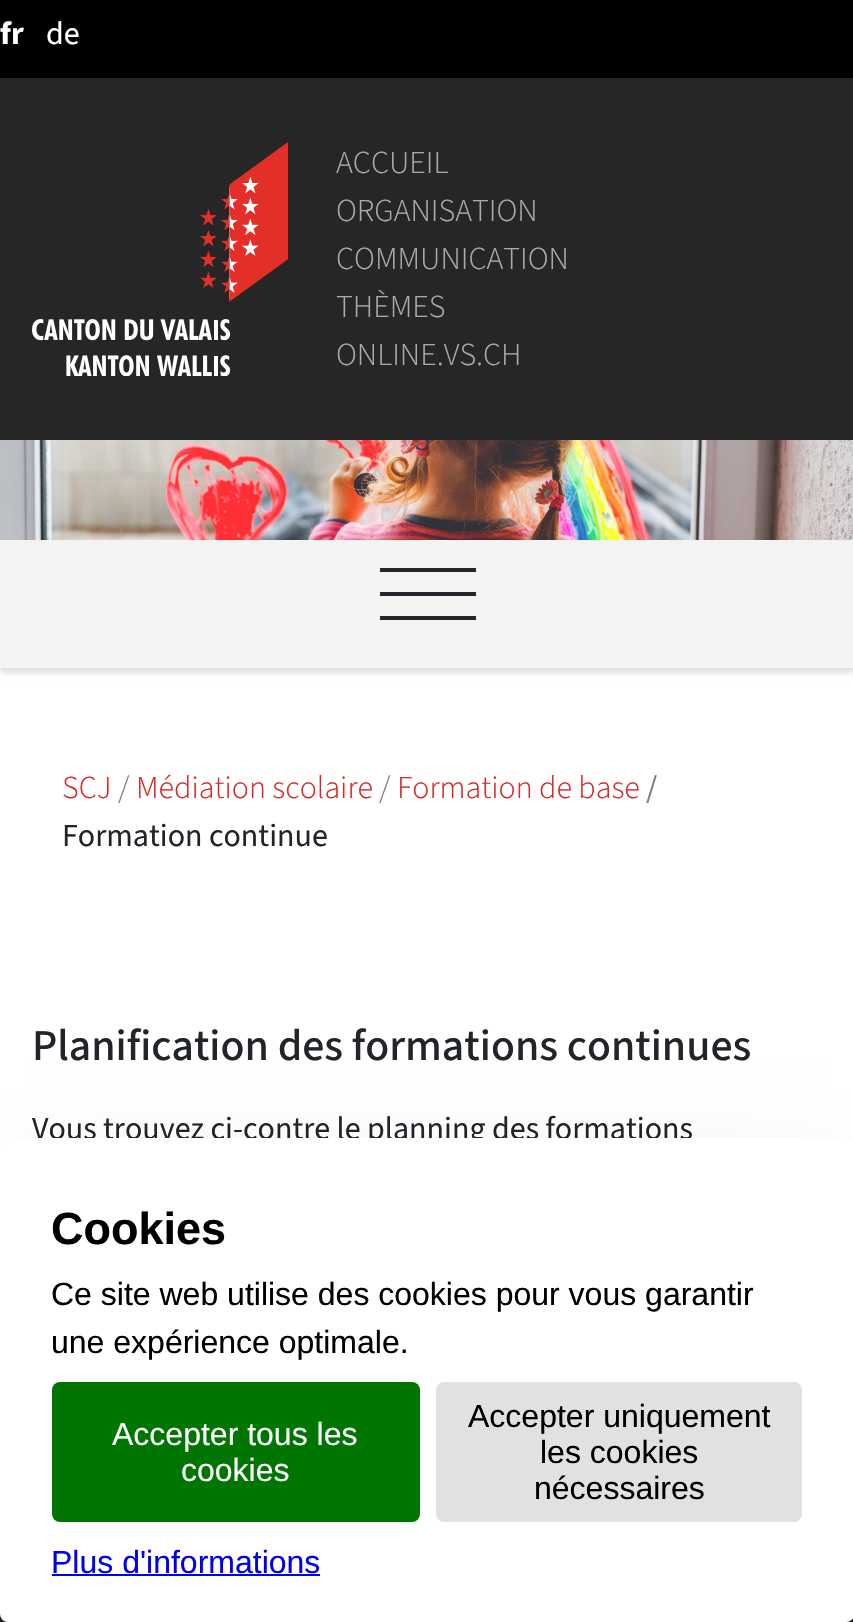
void draw(SkCanvas* canvas) {
	SkPaint paint;
	paint.setAntiAlias(true);
	canvas->clear(0xffffffff);
	paint.setColor(0xff000000);
	canvas->drawRect(SkRect::MakeXYWH(0, 0, 853, 78), paint);
	SkFont f1(fontMgr->matchFamilyStyle("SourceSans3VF", SkFontStyle::Bold()), 32);
	f1.setSubpixel(true);
	paint.setColor(0xffffffff);
	canvas->drawString("fr", 0, 44, f1, paint);
	SkFont f2(fontMgr->matchFamilyStyle("SourceSans3VF", SkFontStyle::Normal()), 32);
	f2.setSubpixel(true);
	canvas->drawString("de", 46, 44, f2, paint);
	paint.setColor(0xff262626);
	canvas->drawRect(SkRect::MakeXYWH(0, 78, 853, 362), paint);
	canvas->drawImageRect(SkImages::DeferredFromEncodedData(SkData::MakeFromFileName("img1.png")), SkRect::MakeXYWH(32, 142, 256, 234), SkSamplingOptions());
	SkFont f3(fontMgr->matchFamilyStyle("SourceSans3VF", SkFontStyle(300, SkFontStyle::kNormal_Width, SkFontStyle::kUpright_Slant)), 32);
	f3.setSubpixel(true);
	paint.setColor(0xffaaaaaa);
	canvas->drawString("ACCUEIL", 336, 173, f3, paint);
	canvas->drawString("ORGANISATION", 336, 221, f3, paint);
	canvas->drawString("COMMUNICATION", 336, 269, f3, paint);
	canvas->drawString("THÈMES", 336, 317, f3, paint);
	canvas->drawString("ONLINE.VS.CH", 336, 365, f3, paint);
	paint.setColor(0x26000000);
	paint.setMaskFilter(SkMaskFilter::MakeBlur(kNormal_SkBlurStyle, 3));
	canvas->drawRect(SkRect::MakeXYWH(0, 544, 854, 128), paint);
	paint.setMaskFilter(nullptr);
	canvas->drawImageRect(SkImages::DeferredFromEncodedData(SkData::MakeFromFileName("img2.png")), SkRect::MakeXYWH(0, 440, 853, 100), SkSamplingOptions());
	paint.setColor(0xfff3f3f2);
	canvas->drawRect(SkRect::MakeXYWH(0, 540, 853, 128), paint);
	paint.setColor(0xff212529);
	canvas->drawRect(SkRect::MakeXYWH(380, 568, 96, 4), paint);
	canvas->drawRect(SkRect::MakeXYWH(380, 592, 96, 4), paint);
	canvas->drawRect(SkRect::MakeXYWH(380, 616, 96, 4), paint);
	paint.setColor(0xffd52826);
	canvas->drawString("SCJ", 62, 798, f3, paint);
	paint.setColor(0xff7a7c7f);
	canvas->drawString("/", 118, 798, f3, paint);
	paint.setColor(0xffd52826);
	canvas->drawString("Médiation scolaire", 136, 798, f3, paint);
	paint.setColor(0xff7a7c7f);
	canvas->drawString("/", 379, 798, f3, paint);
	paint.setColor(0xffd52826);
	canvas->drawString("Formation de base", 397, 798, f3, paint);
	paint.setColor(0xff7a7c7f);
	canvas->drawString("/", 646, 798, f2, paint);
	paint.setColor(0xff212529);
	canvas->drawString("Formation continue", 62, 846, f2, paint);
	SkFont f4(fontMgr->matchFamilyStyle("SourceSans3VF", SkFontStyle(500, SkFontStyle::kNormal_Width, SkFontStyle::kUpright_Slant)), 44);
	f4.setSubpixel(true);
	canvas->drawString("Planification des formations continues", 32, 1060, f4, paint);
	canvas->drawString("Vous trouvez ci-contre le planning des formations", 32, 1139, f2, paint);
	paint.setColor(0xff262626);
	canvas->drawRect(SkRect::MakeXYWH(0, 1614, 853, 8), paint);
	paint.setColor(0x40000000);
	paint.setMaskFilter(SkMaskFilter::MakeBlur(kNormal_SkBlurStyle, 50));
	canvas->drawRect(SkRect::MakeXYWH(24, 1212, 806, 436), paint);
	paint.setMaskFilter(nullptr);
	paint.setColor(0xffffffff);
	canvas->drawRoundRect(SkRect::MakeXYWH(0, 1138, 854, 484), 8, 8, paint);
	SkFont f5(fontMgr->matchFamilyStyle("Liberation Sans", SkFontStyle::Bold()), 45);
	f5.setSubpixel(true);
	paint.setColor(0xff000000);
	canvas->drawString("Cookies", 51, 1244, f5, paint);
	SkFont f6(fontMgr->matchFamilyStyle("Liberation Sans", SkFontStyle::Normal()), 32);
	f6.setSubpixel(true);
	canvas->drawString("Ce site web utilise des cookies pour vous garantir", 51, 1305, f6, paint);
	canvas->drawString("une expérience optimale.", 51, 1353, f6, paint);
	paint.setColor(0xff007502);
	canvas->drawRoundRect(SkRect::MakeXYWH(52, 1382, 368, 140), 8, 8, paint);
	paint.setColor(0xffffffff);
	canvas->drawString("Accepter tous les", 112, 1445, f6, paint);
	canvas->drawString("cookies", 181, 1481, f6, paint);
	paint.setColor(0xffe1e1e1);
	canvas->drawRoundRect(SkRect::MakeXYWH(436, 1382, 366, 140), 8, 8, paint);
	paint.setColor(0xff000000);
	canvas->drawString("Accepter uniquement", 468, 1427, f6, paint);
	canvas->drawString("les cookies", 540, 1463, f6, paint);
	canvas->drawString("nécessaires", 534, 1499, f6, paint);
	paint.setColor(0xff0000ee);
	canvas->drawString("Plus d'informations", 51, 1573, f6, paint);
	canvas->drawRect(SkRect::MakeXYWH(52, 1574, 268, 2), paint);
}
